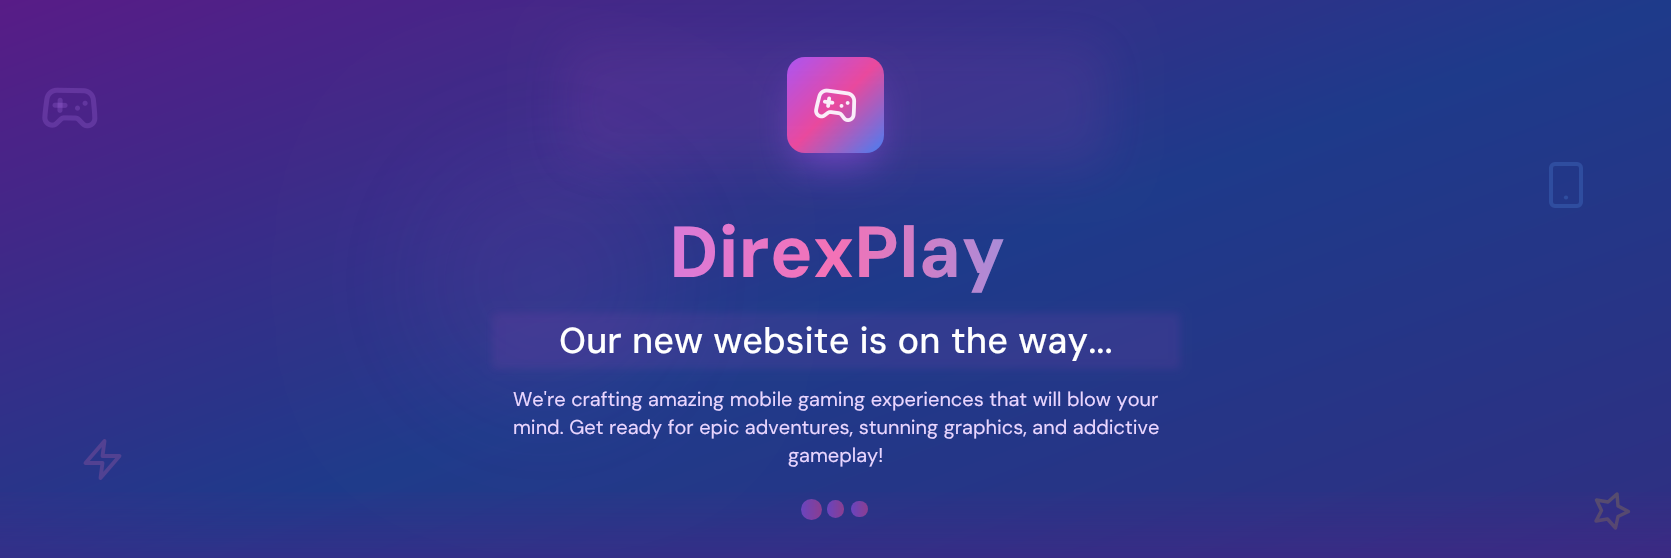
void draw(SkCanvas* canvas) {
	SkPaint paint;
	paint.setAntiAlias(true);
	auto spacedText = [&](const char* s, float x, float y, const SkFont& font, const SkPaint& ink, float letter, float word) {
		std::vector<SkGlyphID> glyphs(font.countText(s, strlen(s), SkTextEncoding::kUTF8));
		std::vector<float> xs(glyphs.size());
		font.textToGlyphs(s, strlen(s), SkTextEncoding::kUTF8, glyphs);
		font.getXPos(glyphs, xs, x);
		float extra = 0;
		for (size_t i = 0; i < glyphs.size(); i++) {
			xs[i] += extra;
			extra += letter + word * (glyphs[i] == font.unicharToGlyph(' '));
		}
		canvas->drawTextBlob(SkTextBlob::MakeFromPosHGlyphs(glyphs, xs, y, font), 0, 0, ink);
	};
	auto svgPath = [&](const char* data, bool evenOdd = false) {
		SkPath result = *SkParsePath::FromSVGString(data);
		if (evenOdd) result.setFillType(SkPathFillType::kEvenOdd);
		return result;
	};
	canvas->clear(0xffffffff);
	{
		const SkColor colors[] = {0xff581c87, 0xff1e3a8a, 0xff312e81};
		const float stops[] = {0, 0.5, 1};
		const SkPoint ends[] = {{639, -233}, {1032, 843}};
		paint.setShader(SkGradientShader::MakeLinear(ends, colors, stops, 3, SkTileMode::kClamp));
		paint.setAlpha(255);
	}
	canvas->drawRect(SkRect::MakeXYWH(0, 0, 1671, 558), paint);
	canvas->drawImageRect(SkImages::DeferredFromEncodedData(SkData::MakeFromFileName("img1.png")), SkRect::MakeXYWH(42, 87, 56, 42), SkSamplingOptions());
	paint.setShader(nullptr);
	paint.setColor(0x17ca4fc8);
	paint.setMaskFilter(SkMaskFilter::MakeBlur(kNormal_SkBlurStyle, 64));
	canvas->drawRoundRect(SkRect::MakeXYWH(417, 152, 257, 257), 128.5, 128.5, paint);
	paint.setMaskFilter(nullptr);
	paint.setStroke(true);
	paint.setStrokeWidth(4);
	paint.setColor(0xff2f4d9f);
	canvas->drawRoundRect(SkRect::MakeXYWH(1551, 164, 30, 42), 4, 4, paint);
	paint.setStrokeWidth(4.2);
	paint.setStrokeCap(SkPaint::kRound_Cap);
	paint.setStrokeJoin(SkPaint::kRound_Join);
	canvas->drawPath(svgPath("M1566 197.5H1566"), paint);
	paint.setStrokeWidth(3.8);
	paint.setColor(0x33f472b6);
	canvas->drawPath(svgPath("M104.5 441L85.5 463H102.5L100.5 478L119.5 456H102.5Z"), paint);
	paint.setStrokeWidth(3.4);
	paint.setColor(0xff564f6d);
	canvas->drawPath(svgPath("M1617 494L1618 506L1628.5 511.5L1618 516.5L1615.5 528L1607.5 519L1596 521L1601.5 510.5L1596.5 500L1608 502Z"), paint);
	paint.setStroke(false);
	paint.setColor(0x80a855f7);
	paint.setMaskFilter(SkMaskFilter::MakeBlur(kNormal_SkBlurStyle, 19));
	canvas->drawRoundRect(SkRect::MakeXYWH(796, 85, 79, 78), 9, 9, paint);
	paint.setMaskFilter(nullptr);
	{
		const SkColor colors[] = {0xffa855f7, 0xffec4899, 0xff3b82f6};
		const float stops[] = {0, 0.5, 1};
		const SkPoint ends[] = {{787, 57}, {884, 153}};
		paint.setShader(SkGradientShader::MakeLinear(ends, colors, stops, 3, SkTileMode::kClamp));
		paint.setAlpha(255);
	}
	canvas->drawRoundRect(SkRect::MakeXYWH(787, 57, 97, 96), 18, 18, paint);
	canvas->drawImageRect(SkImages::DeferredFromEncodedData(SkData::MakeFromFileName("img2.png")), SkRect::MakeXYWH(814, 88, 43, 34), SkSamplingOptions());
	paint.setShader(nullptr);
	paint.setColor(0x1aca4ec8);
	paint.setMaskFilter(SkMaskFilter::MakeBlur(kNormal_SkBlurStyle, 24));
	canvas->drawRoundRect(SkRect::MakeXYWH(564, 43, 543, 124), 18, 18, paint);
	paint.setMaskFilter(nullptr);
	SkFont f1(fontMgr->matchFamilyStyle("DM Sans", SkFontStyle::Bold()), 72);
	f1.setSubpixel(true);
	{
		const SkColor colors[] = {0xffc084fc, 0xfff472b6, 0xff60a5fa};
		const float stops[] = {0, 0.5, 1};
		const SkPoint ends[] = {{500, 253}, {1172, 253}};
		paint.setShader(SkGradientShader::MakeLinear(ends, colors, stops, 3, SkTileMode::kClamp));
		paint.setAlpha(255);
	}
	canvas->drawString("DirexPlay", 669, 277, f1, paint);
	paint.setShader(nullptr);
	paint.setColor(0x1aca4ec8);
	paint.setMaskFilter(SkMaskFilter::MakeBlur(kNormal_SkBlurStyle, 4));
	canvas->drawRect(SkRect::MakeXYWH(492, 313, 688, 56), paint);
	paint.setMaskFilter(nullptr);
	SkFont f2(fontMgr->matchFamilyStyle("DM Sans", SkFontStyle(500, SkFontStyle::kNormal_Width, SkFontStyle::kUpright_Slant)), 36);
	f2.setSubpixel(true);
	paint.setColor(0xffffffff);
	spacedText("Our new website is on the way...", 559, 353, f2, paint, 0, 0.75);
	SkFont f3(fontMgr->matchFamilyStyle("DM Sans", SkFontStyle::Normal()), 20);
	f3.setSubpixel(true);
	paint.setColor(0xffe9d5ff);
	spacedText("We're crafting amazing mobile gaming experiences that will blow your", 513, 406, f3, paint, 0, 0.25);
	spacedText("mind. Get ready for epic adventures, stunning graphics, and addictive", 513, 434, f3, paint, 0, 0.25);
	canvas->drawString("gameplay!", 788, 462, f3, paint);
	{
		const SkColor colors[] = {0x80581c87, 0x00581c87};
		const float stops[] = {0, 1};
		const SkPoint ends[] = {{836, 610}, {836, 482}};
		paint.setShader(SkGradientShader::MakeLinear(ends, colors, stops, 2, SkTileMode::kClamp));
		paint.setAlpha(255);
	}
	canvas->drawRect(SkRect::MakeXYWH(0, 492, 1671, 66), paint);
	{
		const SkColor colors[] = {0x80a855f7, 0x80ec4899};
		const float stops[] = {0, 1};
		const SkPoint ends[] = {{801, 509}, {822, 509}};
		paint.setShader(SkGradientShader::MakeLinear(ends, colors, stops, 2, SkTileMode::kClamp));
		paint.setAlpha(255);
	}
	canvas->drawCircle(811.5, 509.5, 10.5, paint);
	{
		const SkColor colors[] = {0x80a855f7, 0x80ec4899};
		const float stops[] = {0, 1};
		const SkPoint ends[] = {{827, 509}, {844, 509}};
		paint.setShader(SkGradientShader::MakeLinear(ends, colors, stops, 2, SkTileMode::kClamp));
		paint.setAlpha(255);
	}
	canvas->drawRoundRect(SkRect::MakeXYWH(827, 500, 17, 18), 8.5, 8.5, paint);
	{
		const SkColor colors[] = {0x80a855f7, 0x80ec4899};
		const float stops[] = {0, 1};
		const SkPoint ends[] = {{851, 509}, {868, 509}};
		paint.setShader(SkGradientShader::MakeLinear(ends, colors, stops, 2, SkTileMode::kClamp));
		paint.setAlpha(255);
	}
	canvas->drawRoundRect(SkRect::MakeXYWH(851, 501, 17, 16), 8, 8, paint);
}
